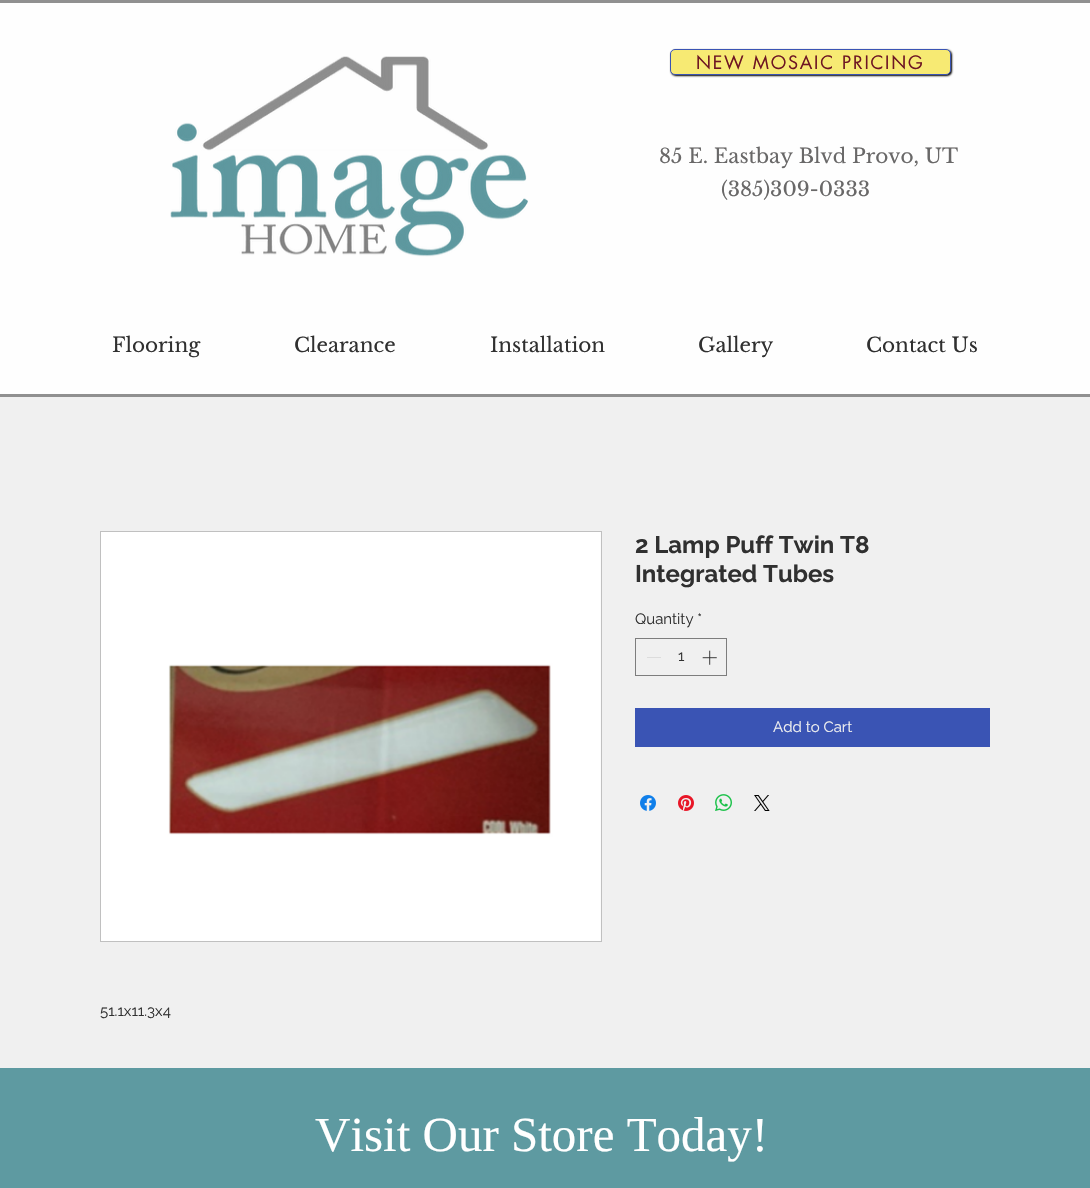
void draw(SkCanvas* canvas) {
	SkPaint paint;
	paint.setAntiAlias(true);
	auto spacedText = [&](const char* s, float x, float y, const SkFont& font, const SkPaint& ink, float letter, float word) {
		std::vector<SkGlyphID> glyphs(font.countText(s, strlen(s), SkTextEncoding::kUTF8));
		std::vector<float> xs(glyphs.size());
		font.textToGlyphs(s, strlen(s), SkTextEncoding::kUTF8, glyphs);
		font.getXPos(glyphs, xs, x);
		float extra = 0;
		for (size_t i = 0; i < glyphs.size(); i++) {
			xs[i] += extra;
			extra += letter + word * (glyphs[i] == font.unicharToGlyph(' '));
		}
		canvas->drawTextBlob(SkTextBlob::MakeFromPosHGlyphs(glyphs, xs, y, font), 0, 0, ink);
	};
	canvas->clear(0xfff0f0f0);
	paint.setColor(0xfffefefe);
	canvas->drawRect(SkRect::MakeXYWH(0, 3, 1090, 391), paint);
	paint.setColor(0xff909090);
	canvas->drawRect(SkRect::MakeXYWH(0, 0, 1090, 3), paint);
	canvas->drawRect(SkRect::MakeXYWH(0, 394, 1090, 3), paint);
	canvas->drawImageRect(SkImages::DeferredFromEncodedData(SkData::MakeFromFileName("img1.png")), SkRect::MakeXYWH(170, 56, 358, 201), SkSamplingOptions());
	paint.setColor(0xff000000);
	paint.setMaskFilter(SkMaskFilter::MakeBlur(kNormal_SkBlurStyle, 1));
	canvas->drawRoundRect(SkRect::MakeXYWH(671, 50, 281, 26), 5, 5, paint);
	paint.setMaskFilter(nullptr);
	paint.setColor(0xfff7ea73);
	canvas->drawRoundRect(SkRect::MakeXYWH(670.5, 49.5, 280, 25), 4.5, 4.5, paint);
	paint.setStroke(true);
	paint.setStrokeWidth(1);
	paint.setColor(0xff3a54b4);
	canvas->drawRoundRect(SkRect::MakeXYWH(670.5, 49.5, 280, 25), 4.5, 4.5, paint);
	SkFont f1(fontMgr->matchFamilyStyle("futura", SkFontStyle::Normal()), 18);
	f1.setSubpixel(true);
	paint.setStroke(false);
	paint.setColor(0xff6e1623);
	spacedText("NEW MOSAIC PRICING", 696, 69, f1, paint, 1.75, 0);
	SkFont f2(fontMgr->matchFamilyStyle("Libre Baskerville", SkFontStyle::Normal()), 20);
	f2.setSubpixel(true);
	paint.setColor(0xff696868);
	canvas->drawString("85 E. Eastbay Blvd Provo, UT", 659, 163, f2, paint);
	canvas->drawString("(385)309-0333", 721, 196, f2, paint);
	paint.setColor(0xff303030);
	canvas->drawString("Flooring", 112, 352, f2, paint);
	canvas->drawString("Clearance", 294, 352, f2, paint);
	canvas->drawString("Installation", 490, 352, f2, paint);
	canvas->drawString("Gallery", 698, 352, f2, paint);
	canvas->drawString("Contact Us", 866, 352, f2, paint);
	SkFont f3(fontMgr->matchFamilyStyle("Raleway", SkFontStyle::Bold()), 24);
	f3.setSubpixel(true);
	canvas->drawString("2 Lamp Puff Twin T8", 635, 553, f3, paint);
	canvas->drawString("Integrated Tubes", 635, 582, f3, paint);
	SkFont f4(fontMgr->matchFamilyStyle("Raleway", SkFontStyle::Normal()), 15);
	f4.setSubpixel(true);
	canvas->drawString("Quantity *", 635, 624, f4, paint);
	paint.setStroke(true);
	paint.setColor(0xff7d7d7d);
	canvas->drawRect(SkRect::MakeXYWH(635.5, 638.5, 91, 37), paint);
	paint.setStroke(false);
	paint.setColor(0xffdcdcdc);
	canvas->drawRect(SkRect::MakeXYWH(647, 657, 14, 1), paint);
	paint.setColor(0xff303030);
	canvas->drawString("1", 678, 661, f4, paint);
	canvas->drawImageRect(SkImages::DeferredFromEncodedData(SkData::MakeFromFileName("img2.png")), SkRect::MakeXYWH(702, 650, 15, 15), SkSamplingOptions());
	paint.setColor(0xff3a54b4);
	canvas->drawRect(SkRect::MakeXYWH(635, 708, 355, 39), paint);
	paint.setColor(0xfff0f0f0);
	canvas->drawString("Add to Cart", 773, 732, f4, paint);
	canvas->drawImageRect(SkImages::DeferredFromEncodedData(SkData::MakeFromFileName("img3.png")), SkRect::MakeXYWH(640, 795, 16, 16), SkSamplingOptions());
	canvas->drawImageRect(SkImages::DeferredFromEncodedData(SkData::MakeFromFileName("img4.png")), SkRect::MakeXYWH(678, 795, 16, 16), SkSamplingOptions());
	canvas->drawImageRect(SkImages::DeferredFromEncodedData(SkData::MakeFromFileName("img5.png")), SkRect::MakeXYWH(715, 794, 17, 17), SkSamplingOptions());
	canvas->drawImageRect(SkImages::DeferredFromEncodedData(SkData::MakeFromFileName("img6.png")), SkRect::MakeXYWH(754, 795, 16, 16), SkSamplingOptions());
	paint.setStroke(true);
	paint.setColor(0xffc0c0c0);
	canvas->drawRect(SkRect::MakeXYWH(100.5, 531.5, 501, 410), paint);
	canvas->drawImageRect(SkImages::DeferredFromEncodedData(SkData::MakeFromFileName("img7.png")), SkRect::MakeXYWH(101, 532, 500, 409), SkSamplingOptions());
	paint.setStroke(false);
	paint.setColor(0xff303030);
	canvas->drawString("51.1x11.3x4", 100, 1016, f4, paint);
	paint.setColor(0xff5e9aa1);
	canvas->drawRect(SkRect::MakeXYWH(0, 1068, 1090, 120), paint);
	SkFont f5(fontMgr->matchFamilyStyle("Liberation Serif", SkFontStyle::Normal()), 49);
	f5.setSubpixel(true);
	paint.setColor(0xffffffff);
	canvas->drawString("Visit Our Store Today!", 315, 1151, f5, paint);
}
